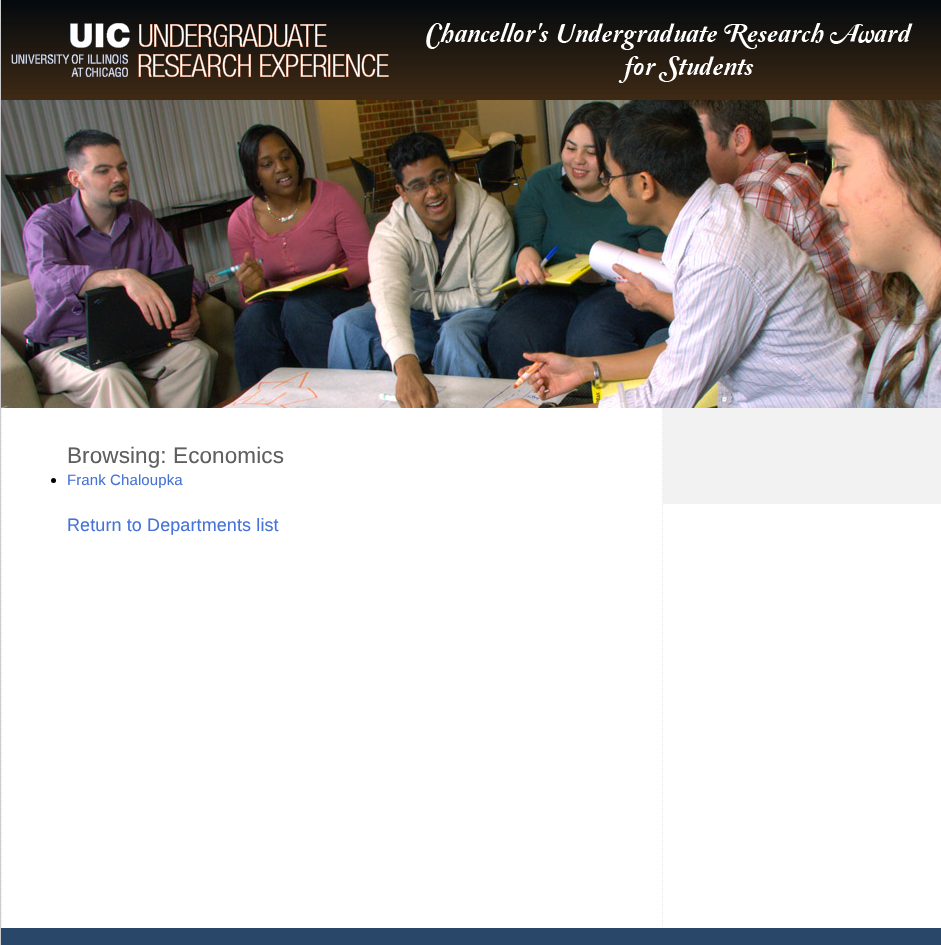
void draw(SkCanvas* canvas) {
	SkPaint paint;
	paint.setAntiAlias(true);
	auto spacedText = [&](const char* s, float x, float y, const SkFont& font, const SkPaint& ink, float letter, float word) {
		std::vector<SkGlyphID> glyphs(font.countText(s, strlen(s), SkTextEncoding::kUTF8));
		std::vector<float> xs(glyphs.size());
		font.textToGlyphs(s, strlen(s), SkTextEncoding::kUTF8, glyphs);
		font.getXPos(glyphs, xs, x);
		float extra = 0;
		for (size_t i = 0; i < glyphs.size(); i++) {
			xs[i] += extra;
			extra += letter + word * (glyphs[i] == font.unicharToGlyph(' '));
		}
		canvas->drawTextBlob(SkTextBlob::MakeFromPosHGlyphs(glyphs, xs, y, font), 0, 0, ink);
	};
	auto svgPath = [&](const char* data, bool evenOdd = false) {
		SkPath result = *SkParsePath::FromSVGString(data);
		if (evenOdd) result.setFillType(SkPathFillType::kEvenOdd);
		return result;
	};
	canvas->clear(0xffffffff);
	canvas->drawImageRect(SkImages::DeferredFromEncodedData(SkData::MakeFromFileName("img1.png")), SkRect::MakeXYWH(1, 0, 940, 100), SkSamplingOptions());
	paint.setColor(0xffcccccc);
	canvas->drawRect(SkRect::MakeXYWH(0, 0, 1, 945), paint);
	canvas->drawImageRect(SkImages::DeferredFromEncodedData(SkData::MakeFromFileName("img2.png")), SkRect::MakeXYWH(11, 23, 378, 54), SkSamplingOptions());
	canvas->drawImageRect(SkImages::DeferredFromEncodedData(SkData::MakeFromFileName("img3.png")), SkRect::MakeXYWH(426, 23, 487, 60), SkSamplingOptions());
	canvas->drawImageRect(SkImages::DeferredFromEncodedData(SkData::MakeFromFileName("img4.png")), SkRect::MakeXYWH(1, 100, 940, 308), SkSamplingOptions());
	paint.setStroke(true);
	paint.setStrokeWidth(1);
	paint.setColor(0xffe8e8e8);
	paint.setPathEffect(SkDashPathEffect::Make({{1, 1}}, 0));
	canvas->drawPath(svgPath("M662.5 408V928"), paint);
	paint.setPathEffect(nullptr);
	paint.setPathEffect(SkDashPathEffect::Make({{1, 1}}, 0));
	canvas->drawPath(svgPath("M1.5 408V928"), paint);
	paint.setPathEffect(nullptr);
	SkFont f1(fontMgr->matchFamilyStyle("Liberation Sans", SkFontStyle::Normal()), 22.5);
	f1.setSubpixel(true);
	paint.setStroke(false);
	paint.setColor(0xff5f5f5f);
	spacedText("Browsing: Economics", 67, 463, f1, paint, 0.1, 0);
	paint.setColor(0xff000000);
	canvas->drawCircle(53.5, 480.5, 2.5, paint);
	SkFont f2(fontMgr->matchFamilyStyle("Liberation Sans", SkFontStyle::Normal()), 15);
	f2.setSubpixel(true);
	paint.setColor(0xff4673d8);
	spacedText("Frank Chaloupka", 67, 485, f2, paint, 0.1, 0);
	SkFont f3(fontMgr->matchFamilyStyle("Liberation Sans", SkFontStyle::Normal()), 18);
	f3.setSubpixel(true);
	spacedText("Return to Departments list", 67, 531, f3, paint, 0.1, 0);
	paint.setColor(0xfff2f2f2);
	canvas->drawRect(SkRect::MakeXYWH(663, 408, 278, 96), paint);
	paint.setColor(0xff294769);
	canvas->drawRect(SkRect::MakeXYWH(1, 928, 940, 17), paint);
}
